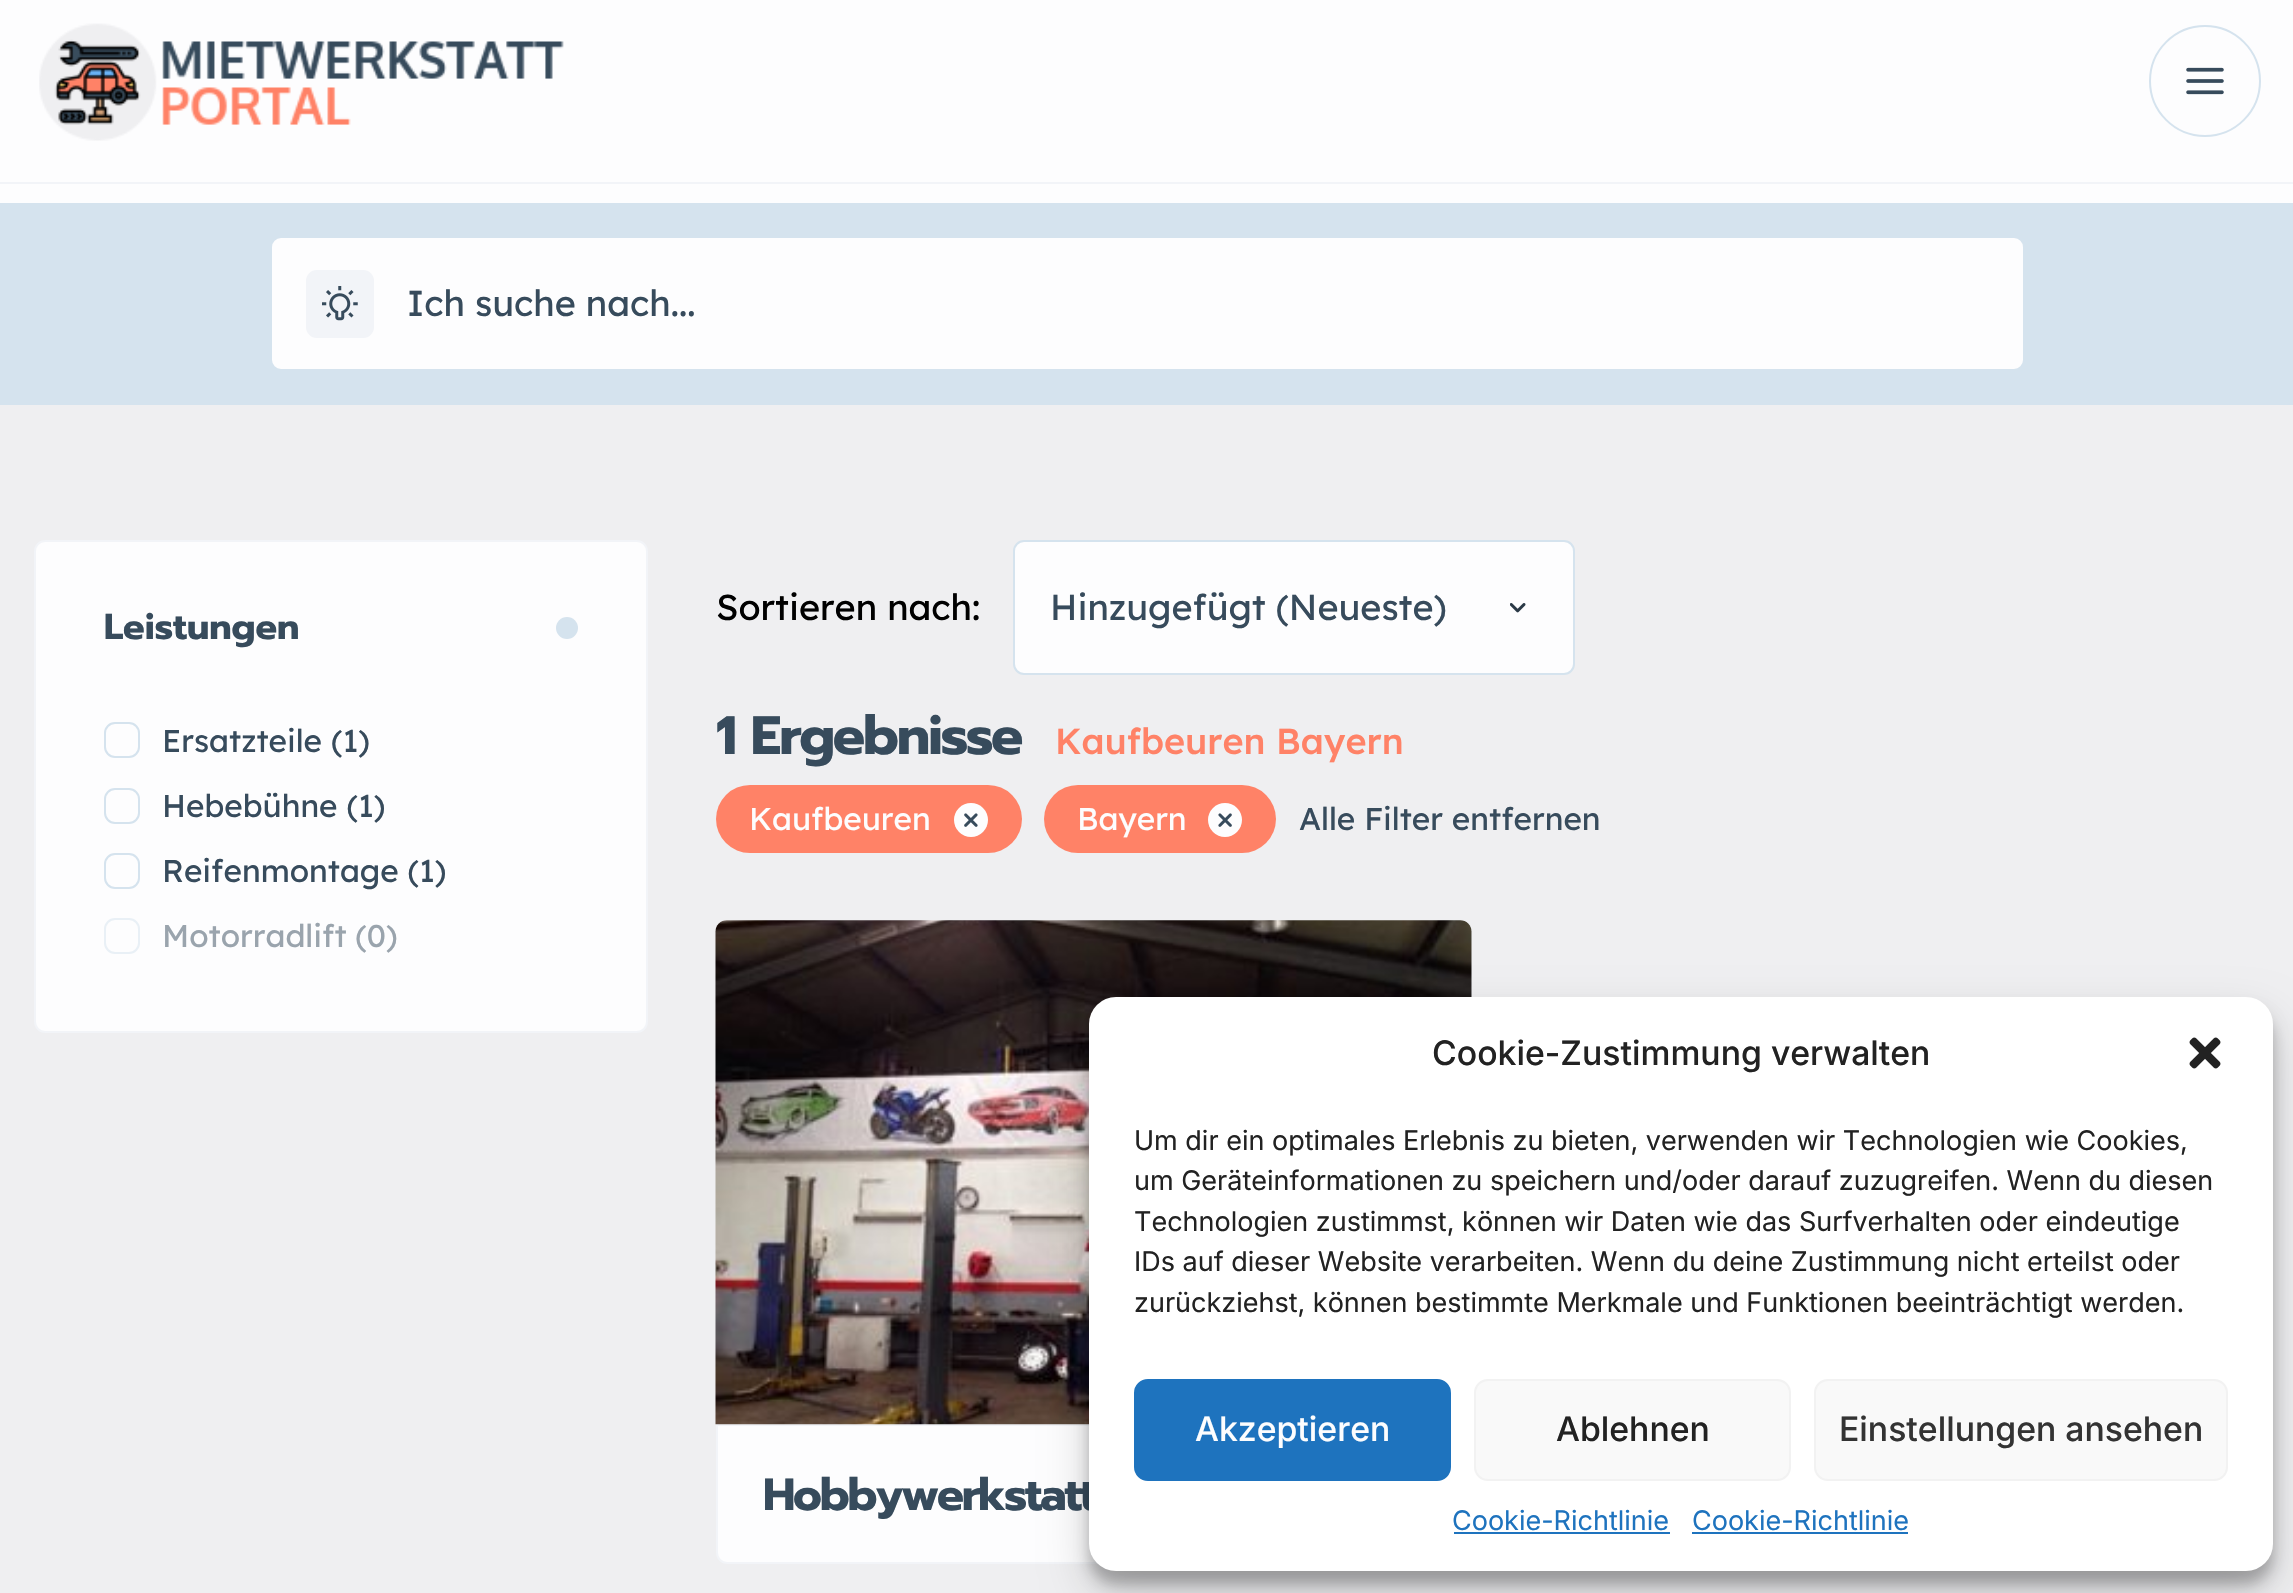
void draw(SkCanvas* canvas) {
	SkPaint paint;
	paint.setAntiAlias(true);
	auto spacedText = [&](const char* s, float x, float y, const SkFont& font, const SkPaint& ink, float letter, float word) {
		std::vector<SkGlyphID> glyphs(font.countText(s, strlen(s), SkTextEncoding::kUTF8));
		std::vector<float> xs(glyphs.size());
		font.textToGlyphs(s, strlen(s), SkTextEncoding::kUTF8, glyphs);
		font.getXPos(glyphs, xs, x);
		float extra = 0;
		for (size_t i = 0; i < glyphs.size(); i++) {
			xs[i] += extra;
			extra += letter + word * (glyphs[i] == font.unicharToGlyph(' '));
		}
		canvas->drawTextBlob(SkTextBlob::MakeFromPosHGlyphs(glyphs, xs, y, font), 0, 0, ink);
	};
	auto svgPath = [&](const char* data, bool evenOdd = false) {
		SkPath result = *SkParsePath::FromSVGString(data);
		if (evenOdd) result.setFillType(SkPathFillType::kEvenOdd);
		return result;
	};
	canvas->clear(0xffefeff1);
	paint.setColor(0xfffdfdfe);
	canvas->drawRect(SkRect::MakeXYWH(0, 0, 2293, 203), paint);
	canvas->drawImageRect(SkImages::DeferredFromEncodedData(SkData::MakeFromFileName("img1.png")), SkRect::MakeXYWH(39, 23, 525, 118), SkSamplingOptions());
	paint.setStroke(true);
	paint.setStrokeWidth(2);
	paint.setColor(0xffd5e3ee);
	canvas->drawCircle(2205, 81, 55, paint);
	canvas->drawImageRect(SkImages::DeferredFromEncodedData(SkData::MakeFromFileName("img2.png")), SkRect::MakeXYWH(2186, 67, 38, 28), SkSamplingOptions());
	paint.setStroke(false);
	paint.setColor(0xfff2f4f8);
	canvas->drawRect(SkRect::MakeXYWH(0, 182, 2293, 2), paint);
	paint.setColor(0xffd5e3ee);
	canvas->drawRect(SkRect::MakeXYWH(0, 203, 2293, 202), paint);
	paint.setColor(0xfffdfdfe);
	canvas->drawRoundRect(SkRect::MakeXYWH(271, 237, 1753, 133), 10, 10, paint);
	paint.setStroke(true);
	paint.setColor(0xffd5e3ee);
	canvas->drawRoundRect(SkRect::MakeXYWH(271, 237, 1753, 133), 10, 10, paint);
	paint.setStroke(false);
	paint.setColor(0xfff2f4f8);
	canvas->drawRoundRect(SkRect::MakeXYWH(306, 270, 68, 68), 11, 11, paint);
	canvas->drawImageRect(SkImages::DeferredFromEncodedData(SkData::MakeFromFileName("img3.png")), SkRect::MakeXYWH(322, 286, 36, 35), SkSamplingOptions());
	SkFont f1(fontMgr->matchFamilyStyle("Lexend Deca", SkFontStyle::Normal()), 36);
	f1.setSubpixel(true);
	paint.setColor(0xff374b5c);
	canvas->drawString("Ich suche nach...", 407, 316, f1, paint);
	paint.setColor(0xfffdfdfe);
	canvas->drawRoundRect(SkRect::MakeXYWH(35, 541, 612, 491), 10, 10, paint);
	paint.setStroke(true);
	paint.setColor(0xfff2f4f8);
	canvas->drawRoundRect(SkRect::MakeXYWH(35, 541, 612, 491), 10, 10, paint);
	SkFont f2(fontMgr->matchFamilyStyle("Prompt", SkFontStyle::Bold()), 36);
	f2.setSubpixel(true);
	paint.setStroke(false);
	paint.setColor(0xff374b5c);
	canvas->drawString("Leistungen", 104, 639, f2, paint);
	paint.setColor(0xffd5e3ee);
	canvas->drawCircle(567, 628, 11, paint);
	paint.setStroke(true);
	canvas->drawRoundRect(SkRect::MakeXYWH(105, 723, 34, 34), 10, 10, paint);
	SkFont f3(fontMgr->matchFamilyStyle("Lexend Deca", SkFontStyle::Normal()), 31.5);
	f3.setSubpixel(true);
	paint.setStroke(false);
	paint.setColor(0xff374b5c);
	canvas->drawString("Ersatzteile (1)", 162, 752, f3, paint);
	paint.setStroke(true);
	paint.setColor(0xffd5e3ee);
	canvas->drawRoundRect(SkRect::MakeXYWH(105, 789, 34, 34), 10, 10, paint);
	paint.setStroke(false);
	paint.setColor(0xff374b5c);
	canvas->drawString("Hebebühne (1)", 162, 817, f3, paint);
	paint.setStroke(true);
	paint.setColor(0xffd5e3ee);
	canvas->drawRoundRect(SkRect::MakeXYWH(105, 854, 34, 34), 10, 10, paint);
	paint.setStroke(false);
	paint.setColor(0xff374b5c);
	canvas->drawString("Reifenmontage (1)", 162, 882, f3, paint);
	paint.setStroke(true);
	paint.setColor(0xffe9f0f6);
	canvas->drawRoundRect(SkRect::MakeXYWH(105, 919, 34, 34), 10, 10, paint);
	paint.setStroke(false);
	paint.setColor(0xff9aa4ad);
	canvas->drawString("Motorradlift (0)", 162, 947, f3, paint);
	paint.setColor(0xff000000);
	canvas->drawString("Sortieren nach:", 716, 620, f1, paint);
	paint.setColor(0xfffdfdfe);
	canvas->drawRoundRect(SkRect::MakeXYWH(1014, 541, 560, 133), 10, 10, paint);
	paint.setStroke(true);
	paint.setColor(0xffd5e3ee);
	canvas->drawRoundRect(SkRect::MakeXYWH(1014, 541, 560, 133), 10, 10, paint);
	paint.setStroke(false);
	paint.setColor(0xff374b5c);
	canvas->drawString("Hinzugefügt (Neueste)", 1050, 620, f1, paint);
	canvas->drawImageRect(SkImages::DeferredFromEncodedData(SkData::MakeFromFileName("img4.png")), SkRect::MakeXYWH(1510, 603, 16, 10), SkSamplingOptions());
	SkFont f4(fontMgr->matchFamilyStyle("Prompt", SkFontStyle::Bold()), 54);
	f4.setSubpixel(true);
	spacedText("1 Ergebnisse", 716, 754, f4, paint, -2.25, 0);
	SkFont f5(fontMgr->matchFamilyStyle("Lexend Deca", SkFontStyle(500, SkFontStyle::kNormal_Width, SkFontStyle::kUpright_Slant)), 36);
	f5.setSubpixel(true);
	paint.setColor(0xffff8267);
	canvas->drawString("Kaufbeuren Bayern", 1055, 754, f5, paint);
	canvas->drawRoundRect(SkRect::MakeXYWH(716, 785, 306, 68), 34, 34, paint);
	paint.setColor(0xfffdfdfe);
	canvas->drawString("Kaufbeuren", 749, 830, f3, paint);
	canvas->drawCircle(971, 820, 17, paint);
	canvas->drawImageRect(SkImages::DeferredFromEncodedData(SkData::MakeFromFileName("img5.png")), SkRect::MakeXYWH(964, 813, 14, 14), SkSamplingOptions());
	paint.setColor(0xffff8267);
	canvas->drawRoundRect(SkRect::MakeXYWH(1044, 785, 232, 68), 34, 34, paint);
	paint.setColor(0xfffdfdfe);
	canvas->drawString("Bayern", 1077, 830, f3, paint);
	canvas->drawCircle(1225, 820, 17, paint);
	canvas->drawImageRect(SkImages::DeferredFromEncodedData(SkData::MakeFromFileName("img6.png")), SkRect::MakeXYWH(1218, 813, 14, 14), SkSamplingOptions());
	paint.setColor(0xff374b5c);
	canvas->drawString("Alle Filter entfernen", 1299, 830, f3, paint);
	paint.setColor(0xfff2f4f8);
	canvas->drawPath(svgPath("M727 920H1461C1467 920 1472 925 1472 931V1424H716V931C716 925 721 920 727 920Z"), paint);
	paint.setColor(0xfffdfdfe);
	canvas->drawPath(svgPath("M717 1425H1471V1553C1471 1558.5 1466.5 1563 1461 1563H727C721.5 1563 717 1558.5 717 1553Z"), paint);
	paint.setStroke(true);
	paint.setColor(0xfff2f4f8);
	canvas->drawPath(svgPath("M717 1425H1471V1553C1471 1558.5 1466.5 1563 1461 1563H727C721.5 1563 717 1558.5 717 1553Z"), paint);
	canvas->drawImageRect(SkImages::DeferredFromEncodedData(SkData::MakeFromFileName("img7.png")), SkRect::MakeXYWH(715, 920, 757, 505), SkSamplingOptions());
	SkFont f6(fontMgr->matchFamilyStyle("Prompt", SkFontStyle::Bold()), 45);
	f6.setSubpixel(true);
	paint.setStroke(false);
	paint.setColor(0xff374b5c);
	spacedText("Hobbywerkstatt", 763, 1510, f6, paint, -2.25, 0);
	paint.setColor(0x3b000000);
	paint.setMaskFilter(SkMaskFilter::MakeBlur(kNormal_SkBlurStyle, 7));
	canvas->drawRoundRect(SkRect::MakeXYWH(1089, 1010, 1184, 574), 27, 27, paint);
	paint.setMaskFilter(nullptr);
	paint.setColor(0x30000000);
	paint.setMaskFilter(SkMaskFilter::MakeBlur(kNormal_SkBlurStyle, 22.5));
	canvas->drawRoundRect(SkRect::MakeXYWH(1089, 1019, 1184, 574), 27, 27, paint);
	paint.setMaskFilter(nullptr);
	paint.setColor(0xffffffff);
	canvas->drawRoundRect(SkRect::MakeXYWH(1089, 997, 1184, 574), 27, 27, paint);
	SkFont f7(fontMgr->matchFamilyStyle("Inter", SkFontStyle(500, SkFontStyle::kNormal_Width, SkFontStyle::kUpright_Slant)), 33.75);
	f7.setSubpixel(true);
	paint.setColor(0xff222222);
	canvas->drawString("Cookie-Zustimmung verwalten", 1432, 1065, f7, paint);
	canvas->drawImageRect(SkImages::DeferredFromEncodedData(SkData::MakeFromFileName("img8.png")), SkRect::MakeXYWH(2189, 1037, 32, 32), SkSamplingOptions());
	SkFont f8(fontMgr->matchFamilyStyle("Inter", SkFontStyle::Normal()), 27);
	f8.setSubpixel(true);
	canvas->drawString("Um dir ein optimales Erlebnis zu bieten, verwenden wir Technologien wie Cookies,", 1134, 1150, f8, paint);
	canvas->drawString("um Geräteinformationen zu speichern und/oder darauf zuzugreifen. Wenn du diesen", 1134, 1190, f8, paint);
	canvas->drawString("Technologien zustimmst, können wir Daten wie das Surfverhalten oder eindeutige", 1134, 1231, f8, paint);
	canvas->drawString("IDs auf dieser Website verarbeiten. Wenn du deine Zustimmung nicht erteilst oder", 1134, 1271, f8, paint);
	canvas->drawString("zurückziehst, können bestimmte Merkmale und Funktionen beeinträchtigt werden.", 1134, 1312, f8, paint);
	paint.setColor(0xff1e73be);
	canvas->drawRoundRect(SkRect::MakeXYWH(1135, 1380, 315, 100), 13, 13, paint);
	paint.setStroke(true);
	canvas->drawRoundRect(SkRect::MakeXYWH(1135, 1380, 315, 100), 13, 13, paint);
	paint.setStroke(false);
	paint.setColor(0xfffdfdfe);
	canvas->drawString("Akzeptieren", 1195, 1441, f7, paint);
	paint.setColor(0xfff9f9f9);
	canvas->drawRoundRect(SkRect::MakeXYWH(1475, 1380, 315, 100), 13, 13, paint);
	paint.setStroke(true);
	paint.setColor(0xfff2f2f2);
	canvas->drawRoundRect(SkRect::MakeXYWH(1475, 1380, 315, 100), 13, 13, paint);
	paint.setStroke(false);
	paint.setColor(0xff222222);
	canvas->drawString("Ablehnen", 1556, 1441, f7, paint);
	paint.setColor(0xfff9f9f9);
	canvas->drawRoundRect(SkRect::MakeXYWH(1815, 1380, 412, 100), 13, 13, paint);
	paint.setStroke(true);
	paint.setColor(0xfff2f2f2);
	canvas->drawRoundRect(SkRect::MakeXYWH(1815, 1380, 412, 100), 13, 13, paint);
	paint.setStroke(false);
	paint.setColor(0xff333333);
	canvas->drawString("Einstellungen ansehen", 1839, 1441, f7, paint);
	paint.setColor(0xff1e73be);
	canvas->drawString("Cookie-Richtlinie", 1452, 1530, f8, paint);
	canvas->drawRect(SkRect::MakeXYWH(1454, 1532, 216, 2), paint);
	canvas->drawString("Cookie-Richtlinie", 1692, 1530, f8, paint);
	canvas->drawRect(SkRect::MakeXYWH(1692, 1532, 216, 2), paint);
}
